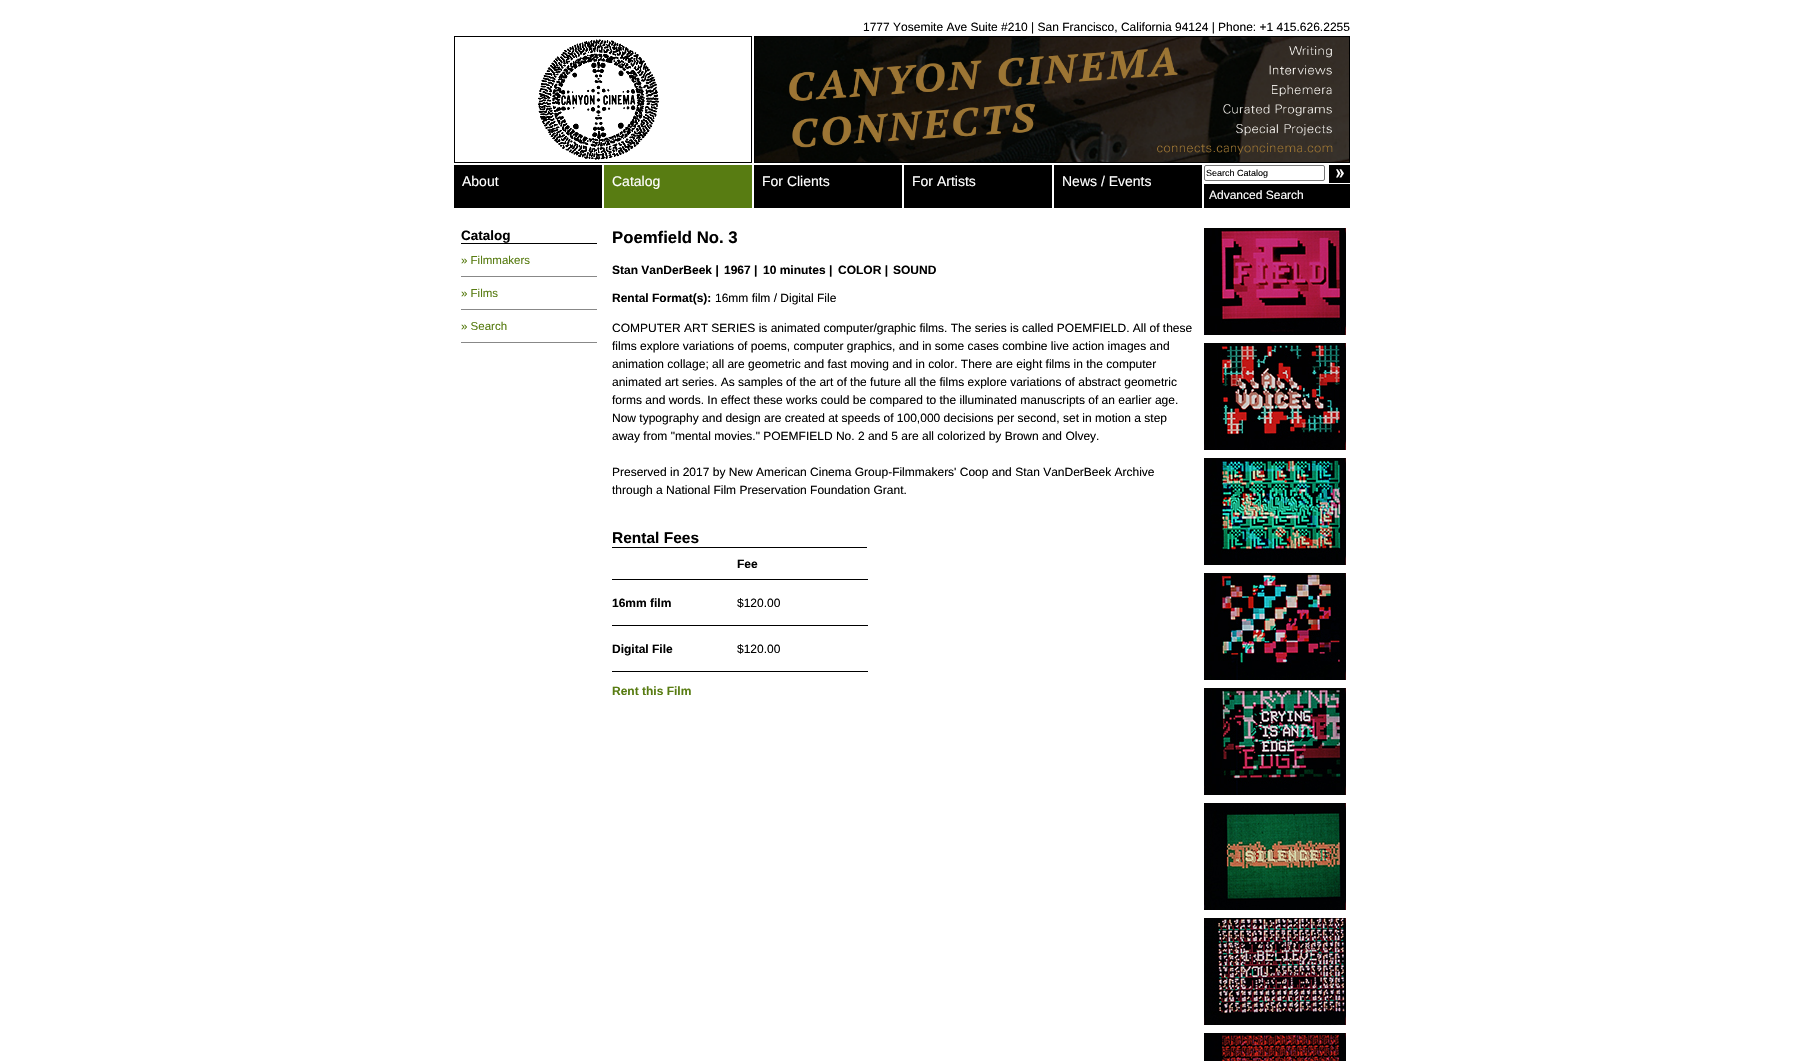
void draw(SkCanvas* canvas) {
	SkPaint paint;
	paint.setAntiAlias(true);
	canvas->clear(0xffffffff);
	SkFont f1(fontMgr->matchFamilyStyle("Liberation Sans", SkFontStyle::Normal()), 12);
	f1.setSubpixel(true);
	paint.setColor(0xff000000);
	canvas->drawString("1777 Yosemite Ave Suite #210 | San Francisco, California 94124 | Phone: +1 415.626.2255", 863, 31, f1, paint);
	paint.setStroke(true);
	paint.setStrokeWidth(1);
	canvas->drawRect(SkRect::MakeXYWH(454.5, 36.5, 297, 126), paint);
	canvas->drawImageRect(SkImages::DeferredFromEncodedData(SkData::MakeFromFileName("img1.png")), SkRect::MakeXYWH(538, 39, 121, 121), SkSamplingOptions());
	canvas->drawRect(SkRect::MakeXYWH(754.5, 36.5, 595, 126), paint);
	canvas->drawImageRect(SkImages::DeferredFromEncodedData(SkData::MakeFromFileName("img2.png")), SkRect::MakeXYWH(755, 37, 594, 125), SkSamplingOptions());
	paint.setStroke(false);
	canvas->drawRect(SkRect::MakeXYWH(454, 165, 148, 43), paint);
	SkFont f2(fontMgr->matchFamilyStyle("Liberation Sans", SkFontStyle::Normal()), 14);
	f2.setSubpixel(true);
	paint.setColor(0xffffffff);
	canvas->drawString("About", 462, 186, f2, paint);
	paint.setColor(0xff587c12);
	canvas->drawRect(SkRect::MakeXYWH(604, 165, 148, 43), paint);
	paint.setColor(0xffffffff);
	canvas->drawString("Catalog", 612, 186, f2, paint);
	paint.setColor(0xff000000);
	canvas->drawRect(SkRect::MakeXYWH(754, 165, 148, 43), paint);
	paint.setColor(0xffffffff);
	canvas->drawString("For Clients", 762, 186, f2, paint);
	paint.setColor(0xff000000);
	canvas->drawRect(SkRect::MakeXYWH(904, 165, 148, 43), paint);
	paint.setColor(0xffffffff);
	canvas->drawString("For Artists", 912, 186, f2, paint);
	paint.setColor(0xff000000);
	canvas->drawRect(SkRect::MakeXYWH(1054, 165, 148, 43), paint);
	paint.setColor(0xffffffff);
	canvas->drawString("News / Events", 1062, 186, f2, paint);
	paint.setStroke(true);
	paint.setColor(0xff767676);
	canvas->drawRoundRect(SkRect::MakeXYWH(1204.5, 165.5, 120, 15), 1.5, 1.5, paint);
	SkFont f3(fontMgr->matchFamilyStyle("Liberation Sans", SkFontStyle::Normal()), 9);
	f3.setSubpixel(true);
	paint.setStroke(false);
	paint.setColor(0xff000000);
	canvas->drawString("Search Catalog", 1206, 176, f3, paint);
	canvas->drawImageRect(SkImages::DeferredFromEncodedData(SkData::MakeFromFileName("img3.png")), SkRect::MakeXYWH(1329, 165, 21, 18), SkSamplingOptions());
	canvas->drawRect(SkRect::MakeXYWH(1204, 184, 146, 24), paint);
	paint.setColor(0xffffffff);
	canvas->drawString("Advanced Search", 1209, 199, f1, paint);
	paint.setColor(0xff000000);
	canvas->drawRect(SkRect::MakeXYWH(461, 243, 136, 1), paint);
	SkFont f4(fontMgr->matchFamilyStyle("Liberation Sans", SkFontStyle::Bold()), 13.5);
	f4.setSubpixel(true);
	canvas->drawString("Catalog", 461, 240, f4, paint);
	paint.setColor(0xff888888);
	canvas->drawRect(SkRect::MakeXYWH(461, 276, 136, 1), paint);
	SkFont f5(fontMgr->matchFamilyStyle("Liberation Sans", SkFontStyle::Normal()), 11.5);
	f5.setSubpixel(true);
	paint.setColor(0xff587c12);
	canvas->drawString("» Filmmakers", 461, 264, f5, paint);
	paint.setColor(0xff888888);
	canvas->drawRect(SkRect::MakeXYWH(461, 309, 136, 1), paint);
	paint.setColor(0xff587c12);
	canvas->drawString("» Films", 461, 297, f5, paint);
	paint.setColor(0xff888888);
	canvas->drawRect(SkRect::MakeXYWH(461, 342, 136, 1), paint);
	paint.setColor(0xff587c12);
	canvas->drawString("» Search", 461, 330, f5, paint);
	SkFont f6(fontMgr->matchFamilyStyle("Liberation Sans", SkFontStyle::Bold()), 16.75);
	f6.setSubpixel(true);
	paint.setColor(0xff000000);
	canvas->drawString("Poemfield No. 3", 612, 243, f6, paint);
	SkFont f7(fontMgr->matchFamilyStyle("Liberation Sans", SkFontStyle::Bold()), 12);
	f7.setSubpixel(true);
	canvas->drawString("Stan VanDerBeek |", 612, 274, f7, paint);
	canvas->drawString("1967 |", 724, 274, f7, paint);
	canvas->drawString("10 minutes |", 763, 274, f7, paint);
	canvas->drawString("COLOR |", 838, 274, f7, paint);
	canvas->drawString("SOUND", 893, 274, f7, paint);
	canvas->drawString("Rental Format(s):", 612, 302, f7, paint);
	canvas->drawString("16mm film / Digital File", 715, 302, f1, paint);
	canvas->drawString("COMPUTER ART SERIES is animated computer/graphic films. The series is called POEMFIELD. All of these", 612, 332, f1, paint);
	canvas->drawString("films explore variations of poems, computer graphics, and in some cases combine live action images and", 612, 350, f1, paint);
	canvas->drawString("animation collage; all are geometric and fast moving and in color. There are eight films in the computer", 612, 368, f1, paint);
	canvas->drawString("animated art series. As samples of the art of the future all the films explore variations of abstract geometric", 612, 386, f1, paint);
	canvas->drawString("forms and words. In effect these works could be compared to the illuminated manuscripts of an earlier age.", 612, 404, f1, paint);
	canvas->drawString("Now typography and design are created at speeds of 100,000 decisions per second, set in motion a step", 612, 422, f1, paint);
	canvas->drawString("away from \"mental movies.\" POEMFIELD No. 2 and 5 are all colorized by Brown and Olvey.", 612, 440, f1, paint);
	canvas->drawString("Preserved in 2017 by New American Cinema Group-Filmmakers' Coop and Stan VanDerBeek Archive", 612, 476, f1, paint);
	canvas->drawString("through a National Film Preservation Foundation Grant.", 612, 494, f1, paint);
	canvas->drawRect(SkRect::MakeXYWH(612, 547, 255, 1), paint);
	SkFont f8(fontMgr->matchFamilyStyle("Liberation Sans", SkFontStyle::Bold()), 15.5);
	f8.setSubpixel(true);
	canvas->drawString("Rental Fees", 612, 543, f8, paint);
	canvas->drawString("Fee", 737, 568, f7, paint);
	canvas->drawRect(SkRect::MakeXYWH(612, 579, 256, 1), paint);
	canvas->drawString("16mm film", 612, 607, f7, paint);
	canvas->drawString("$120.00", 737, 607, f1, paint);
	canvas->drawRect(SkRect::MakeXYWH(612, 625, 256, 1), paint);
	canvas->drawString("Digital File", 612, 653, f7, paint);
	canvas->drawString("$120.00", 737, 653, f1, paint);
	canvas->drawRect(SkRect::MakeXYWH(612, 671, 256, 1), paint);
	paint.setColor(0xff587c12);
	canvas->drawString("Rent this Film", 612, 695, f7, paint);
	canvas->drawImageRect(SkImages::DeferredFromEncodedData(SkData::MakeFromFileName("img4.png")), SkRect::MakeXYWH(1204, 228, 142, 107), SkSamplingOptions());
	canvas->drawImageRect(SkImages::DeferredFromEncodedData(SkData::MakeFromFileName("img5.png")), SkRect::MakeXYWH(1204, 343, 142, 107), SkSamplingOptions());
	canvas->drawImageRect(SkImages::DeferredFromEncodedData(SkData::MakeFromFileName("img6.png")), SkRect::MakeXYWH(1204, 458, 142, 107), SkSamplingOptions());
	canvas->drawImageRect(SkImages::DeferredFromEncodedData(SkData::MakeFromFileName("img7.png")), SkRect::MakeXYWH(1204, 573, 142, 107), SkSamplingOptions());
	canvas->drawImageRect(SkImages::DeferredFromEncodedData(SkData::MakeFromFileName("img8.png")), SkRect::MakeXYWH(1204, 688, 142, 107), SkSamplingOptions());
	canvas->drawImageRect(SkImages::DeferredFromEncodedData(SkData::MakeFromFileName("img9.png")), SkRect::MakeXYWH(1204, 803, 142, 107), SkSamplingOptions());
	canvas->drawImageRect(SkImages::DeferredFromEncodedData(SkData::MakeFromFileName("img10.png")), SkRect::MakeXYWH(1204, 918, 142, 107), SkSamplingOptions());
	canvas->drawImageRect(SkImages::DeferredFromEncodedData(SkData::MakeFromFileName("img11.png")), SkRect::MakeXYWH(1204, 1033, 142, 28), SkSamplingOptions());
}
